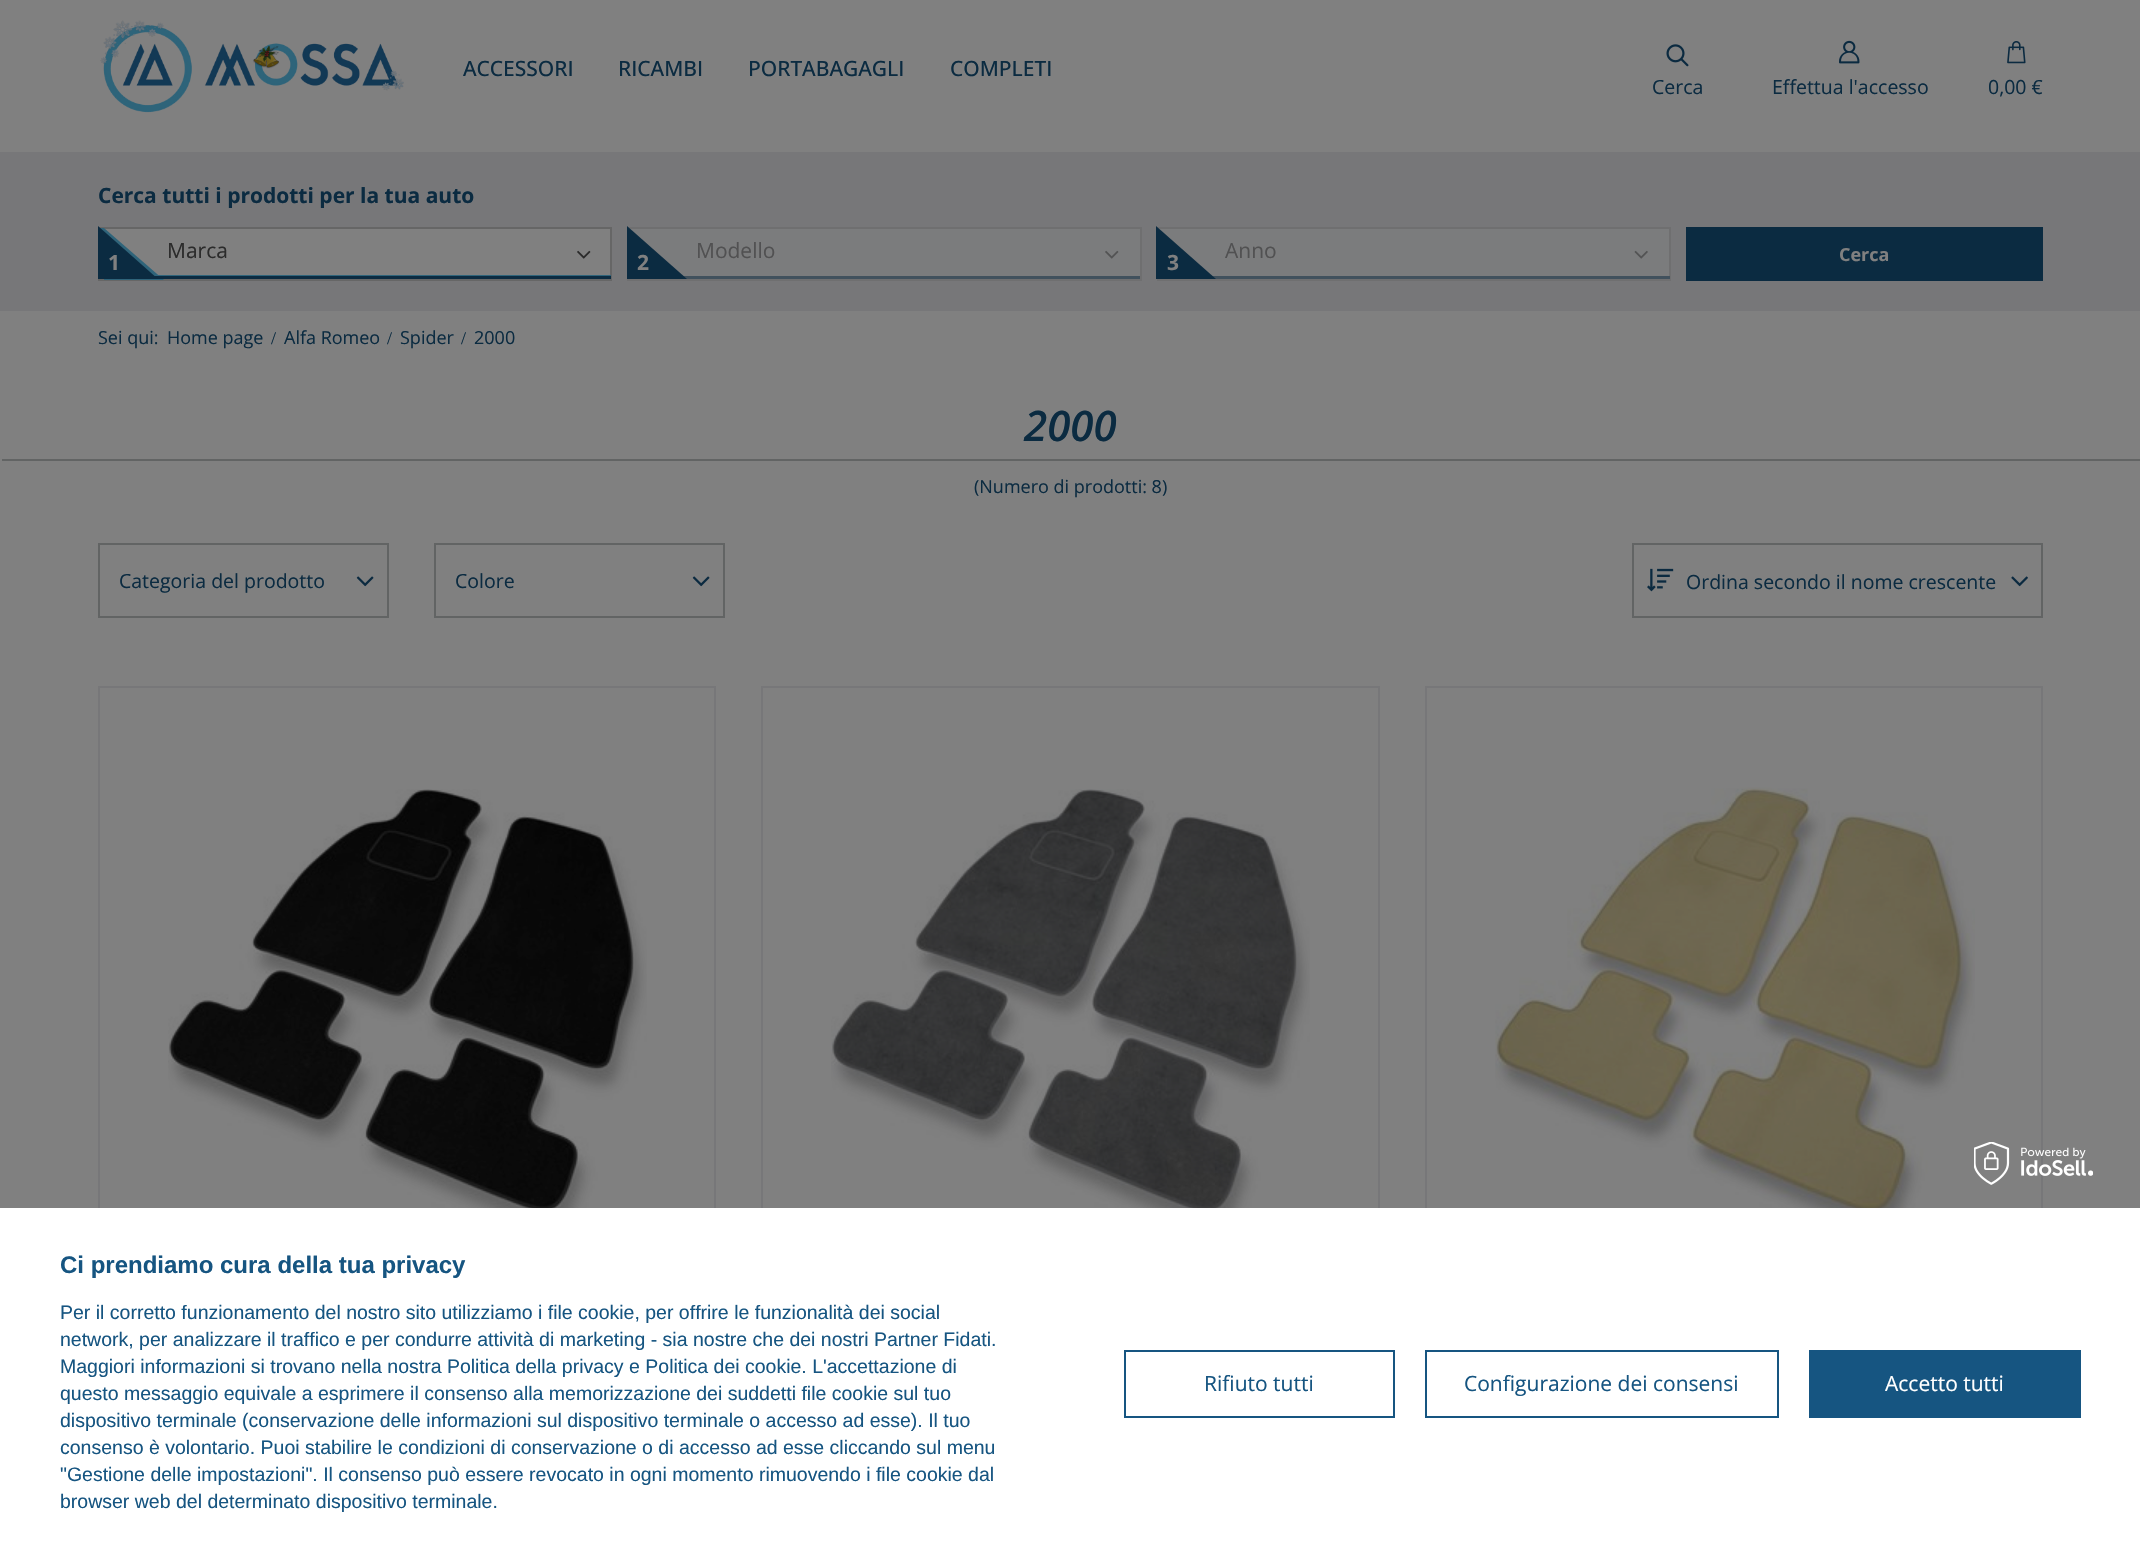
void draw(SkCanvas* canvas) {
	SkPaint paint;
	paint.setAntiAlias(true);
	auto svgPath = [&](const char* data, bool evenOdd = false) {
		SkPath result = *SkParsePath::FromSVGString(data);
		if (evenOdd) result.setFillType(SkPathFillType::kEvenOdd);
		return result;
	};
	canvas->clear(0xff808080);
	canvas->drawImageRect(SkImages::DeferredFromEncodedData(SkData::MakeFromFileName("img1.png")), SkRect::MakeXYWH(100, 20, 304, 93), SkSamplingOptions());
	SkFont f1(fontMgr->matchFamilyStyle("Open Sans", SkFontStyle(500, SkFontStyle::kNormal_Width, SkFontStyle::kUpright_Slant)), 21);
	f1.setSubpixel(true);
	paint.setColor(0xff0b2b41);
	canvas->drawString("ACCESSORI", 463, 76, f1, paint);
	canvas->drawString("RICAMBI", 618, 76, f1, paint);
	canvas->drawString("PORTABAGAGLI", 748, 76, f1, paint);
	canvas->drawString("COMPLETI", 950, 76, f1, paint);
	canvas->drawImageRect(SkImages::DeferredFromEncodedData(SkData::MakeFromFileName("img2.png")), SkRect::MakeXYWH(1666, 44, 23, 23), SkSamplingOptions());
	SkFont f2(fontMgr->matchFamilyStyle("Open Sans", SkFontStyle::Normal()), 19.5);
	f2.setSubpixel(true);
	canvas->drawString("Cerca", 1652, 94, f2, paint);
	canvas->drawImageRect(SkImages::DeferredFromEncodedData(SkData::MakeFromFileName("img3.png")), SkRect::MakeXYWH(1839, 40, 21, 24), SkSamplingOptions());
	canvas->drawString("Effettua l'accesso", 1772, 94, f2, paint);
	canvas->drawImageRect(SkImages::DeferredFromEncodedData(SkData::MakeFromFileName("img4.png")), SkRect::MakeXYWH(2007, 41, 19, 23), SkSamplingOptions());
	canvas->drawString("0,00 €", 1988, 94, f2, paint);
	paint.setColor(0xff777779);
	canvas->drawRect(SkRect::MakeXYWH(0, 152, 2140, 159), paint);
	SkFont f3(fontMgr->matchFamilyStyle("Open Sans", SkFontStyle::Bold()), 21);
	f3.setSubpixel(true);
	paint.setColor(0xff0b2b41);
	canvas->drawString("Cerca tutti i prodotti per la tua auto", 98, 203, f3, paint);
	paint.setColor(0xff808080);
	canvas->drawRect(SkRect::MakeXYWH(105, 229, 505, 46), paint);
	paint.setStroke(true);
	paint.setStrokeWidth(2);
	paint.setColor(0xff666666);
	canvas->drawRect(SkRect::MakeXYWH(99, 228, 512, 52), paint);
	paint.setStroke(false);
	paint.setColor(0xff2f647a);
	canvas->drawRect(SkRect::MakeXYWH(100, 228, 4, 4), paint);
	canvas->drawRect(SkRect::MakeXYWH(158, 275, 453, 1), paint);
	canvas->drawPath(svgPath("M104 280V228L164 280Z"), paint);
	SkFont f4(fontMgr->matchFamilyStyle("Open Sans", SkFontStyle::Normal()), 21);
	f4.setSubpixel(true);
	paint.setColor(0xff2b2b2b);
	canvas->drawString("Marca", 167, 258, f4, paint);
	canvas->drawImageRect(SkImages::DeferredFromEncodedData(SkData::MakeFromFileName("img5.png")), SkRect::MakeXYWH(577, 250, 14, 9), SkSamplingOptions());
	paint.setColor(0xff0b2b41);
	canvas->drawPath(svgPath("M98 279V226L158 279Z"), paint);
	canvas->drawRect(SkRect::MakeXYWH(154, 276, 457, 3), paint);
	paint.setColor(0xff808080);
	canvas->drawString("1", 108, 270, f3, paint);
	paint.setColor(0xff7b7c7d);
	canvas->drawRect(SkRect::MakeXYWH(630, 229, 510, 47), paint);
	paint.setStroke(true);
	paint.setColor(0xff6f6f70);
	canvas->drawRect(SkRect::MakeXYWH(628, 228, 513, 52), paint);
	paint.setStroke(false);
	paint.setColor(0xff515152);
	canvas->drawString("Modello", 696, 258, f4, paint);
	canvas->drawImageRect(SkImages::DeferredFromEncodedData(SkData::MakeFromFileName("img6.png")), SkRect::MakeXYWH(1105, 250, 14, 9), SkSamplingOptions());
	paint.setColor(0xff41515d);
	canvas->drawRect(SkRect::MakeXYWH(683, 276, 457, 3), paint);
	paint.setColor(0xff0b2b41);
	canvas->drawPath(svgPath("M627 279V226L687 279Z"), paint);
	paint.setColor(0xff808080);
	canvas->drawString("2", 637, 270, f3, paint);
	paint.setColor(0xff7b7c7d);
	canvas->drawRect(SkRect::MakeXYWH(1159, 229, 510, 47), paint);
	paint.setStroke(true);
	paint.setColor(0xff6f6f70);
	canvas->drawRect(SkRect::MakeXYWH(1158, 228, 512, 52), paint);
	paint.setStroke(false);
	paint.setColor(0xff515152);
	canvas->drawString("Anno", 1225, 258, f4, paint);
	canvas->drawImageRect(SkImages::DeferredFromEncodedData(SkData::MakeFromFileName("img7.png")), SkRect::MakeXYWH(1634, 250, 14, 9), SkSamplingOptions());
	paint.setColor(0xff41515d);
	canvas->drawRect(SkRect::MakeXYWH(1212, 276, 458, 3), paint);
	paint.setColor(0xff0b2b41);
	canvas->drawPath(svgPath("M1156 279V226L1216 279Z"), paint);
	paint.setColor(0xff808080);
	canvas->drawString("3", 1167, 270, f3, paint);
	paint.setColor(0xff0b2b41);
	canvas->drawRect(SkRect::MakeXYWH(1686, 227, 357, 54), paint);
	SkFont f5(fontMgr->matchFamilyStyle("Open Sans", SkFontStyle::Bold()), 18);
	f5.setSubpixel(true);
	paint.setColor(0xff808080);
	canvas->drawString("Cerca", 1839, 261, f5, paint);
	SkFont f6(fontMgr->matchFamilyStyle("Open Sans", SkFontStyle::Normal()), 18);
	f6.setSubpixel(true);
	paint.setColor(0xff0b2b41);
	canvas->drawString("Sei qui:", 98, 344, f6, paint);
	canvas->drawString("Home page", 167, 344, f6, paint);
	SkFont f7(fontMgr->matchFamilyStyle("Liberation Serif", SkFontStyle::Normal()), 18);
	f7.setSubpixel(true);
	canvas->drawString("/", 271, 344, f7, paint);
	canvas->drawString("Alfa Romeo", 284, 344, f6, paint);
	canvas->drawString("/", 387, 344, f7, paint);
	canvas->drawString("Spider", 400, 344, f6, paint);
	canvas->drawString("/", 461, 344, f7, paint);
	canvas->drawString("2000", 474, 344, f6, paint);
	SkFont f8(fontMgr->matchFamilyStyle("Open Sans", SkFontStyle(600, SkFontStyle::kNormal_Width, SkFontStyle::kItalic_Slant)), 42);
	f8.setSubpixel(true);
	canvas->drawString("2000", 1024, 441, f8, paint);
	paint.setColor(0xff626464);
	canvas->drawRect(SkRect::MakeXYWH(2, 459, 2138, 2), paint);
	paint.setColor(0xff0b2b41);
	canvas->drawString("(Numero di prodotti: 8)", 974, 493, f6, paint);
	paint.setStroke(true);
	paint.setColor(0xff626464);
	canvas->drawRect(SkRect::MakeXYWH(99, 544, 289, 73), paint);
	paint.setStroke(false);
	paint.setColor(0xff0b2b41);
	canvas->drawString("Categoria del prodotto", 119, 588, f2, paint);
	canvas->drawImageRect(SkImages::DeferredFromEncodedData(SkData::MakeFromFileName("img8.png")), SkRect::MakeXYWH(356, 576, 18, 11), SkSamplingOptions());
	paint.setStroke(true);
	paint.setColor(0xff626464);
	canvas->drawRect(SkRect::MakeXYWH(435, 544, 289, 73), paint);
	paint.setStroke(false);
	paint.setColor(0xff0b2b41);
	canvas->drawString("Colore", 455, 588, f2, paint);
	canvas->drawImageRect(SkImages::DeferredFromEncodedData(SkData::MakeFromFileName("img8.png")), SkRect::MakeXYWH(692, 576, 18, 11), SkSamplingOptions());
	paint.setStroke(true);
	paint.setColor(0xff626464);
	canvas->drawRect(SkRect::MakeXYWH(1633, 544, 409, 73), paint);
	canvas->drawImageRect(SkImages::DeferredFromEncodedData(SkData::MakeFromFileName("img9.png")), SkRect::MakeXYWH(1647, 568, 27, 24), SkSamplingOptions());
	paint.setStroke(false);
	paint.setColor(0xff0b2b41);
	canvas->drawString("Ordina secondo il nome crescente", 1686, 589, f2, paint);
	canvas->drawImageRect(SkImages::DeferredFromEncodedData(SkData::MakeFromFileName("img10.png")), SkRect::MakeXYWH(2011, 576, 17, 11), SkSamplingOptions());
	paint.setStroke(true);
	paint.setColor(0xff777779);
	canvas->drawRect(SkRect::MakeXYWH(99, 687, 616, 791), paint);
	canvas->drawImageRect(SkImages::DeferredFromEncodedData(SkData::MakeFromFileName("img11.png")), SkRect::MakeXYWH(168, 789, 479, 419), SkSamplingOptions());
	canvas->drawRect(SkRect::MakeXYWH(762, 687, 617, 791), paint);
	canvas->drawImageRect(SkImages::DeferredFromEncodedData(SkData::MakeFromFileName("img12.png")), SkRect::MakeXYWH(831, 789, 479, 419), SkSamplingOptions());
	canvas->drawRect(SkRect::MakeXYWH(1426, 687, 616, 791), paint);
	canvas->drawImageRect(SkImages::DeferredFromEncodedData(SkData::MakeFromFileName("img13.png")), SkRect::MakeXYWH(1495, 787, 480, 421), SkSamplingOptions());
	paint.setStroke(false);
	paint.setColor(0xffffffff);
	canvas->drawRect(SkRect::MakeXYWH(0, 1208, 2140, 352), paint);
	canvas->drawImageRect(SkImages::DeferredFromEncodedData(SkData::MakeFromFileName("img14.png")), SkRect::MakeXYWH(1974, 1142, 119, 43), SkSamplingOptions());
	SkFont f9(fontMgr->matchFamilyStyle("Liberation Sans", SkFontStyle::Bold()), 24);
	f9.setSubpixel(true);
	paint.setColor(0xff165581);
	canvas->drawString("Ci prendiamo cura della tua privacy", 60, 1273, f9, paint);
	SkFont f10(fontMgr->matchFamilyStyle("Liberation Sans", SkFontStyle::Normal()), 19.5);
	f10.setSubpixel(true);
	canvas->drawString("Per il corretto funzionamento del nostro sito utilizziamo i file cookie, per offrire le funzionalità dei social", 60, 1319, f10, paint);
	canvas->drawString("network, per analizzare il traffico e per condurre attività di marketing - sia nostre che dei nostri Partner Fidati.", 60, 1346, f10, paint);
	canvas->drawString("Maggiori informazioni si trovano nella nostra Politica della privacy e Politica dei cookie. L'accettazione di", 60, 1373, f10, paint);
	canvas->drawString("questo messaggio equivale a esprimere il consenso alla memorizzazione dei suddetti file cookie sul tuo", 60, 1400, f10, paint);
	canvas->drawString("dispositivo terminale (conservazione delle informazioni sul dispositivo terminale o accesso ad esse). Il tuo", 60, 1427, f10, paint);
	canvas->drawString("consenso è volontario. Puoi stabilire le condizioni di conservazione o di accesso ad esse cliccando sul menu", 60, 1454, f10, paint);
	canvas->drawString("\"Gestione delle impostazioni\". Il consenso può essere revocato in ogni momento rimuovendo i file cookie dal", 60, 1481, f10, paint);
	canvas->drawString("browser web del determinato dispositivo terminale.", 60, 1508, f10, paint);
	paint.setStroke(true);
	canvas->drawRect(SkRect::MakeXYWH(1125, 1351, 269, 66), paint);
	paint.setStroke(false);
	canvas->drawString("Rifiuto tutti", 1204, 1391, f4, paint);
	paint.setStroke(true);
	canvas->drawRect(SkRect::MakeXYWH(1426, 1351, 352, 66), paint);
	paint.setStroke(false);
	canvas->drawString("Configurazione dei consensi", 1464, 1391, f4, paint);
	canvas->drawRect(SkRect::MakeXYWH(1809, 1350, 272, 68), paint);
	paint.setColor(0xffffffff);
	canvas->drawString("Accetto tutti", 1885, 1391, f4, paint);
}
